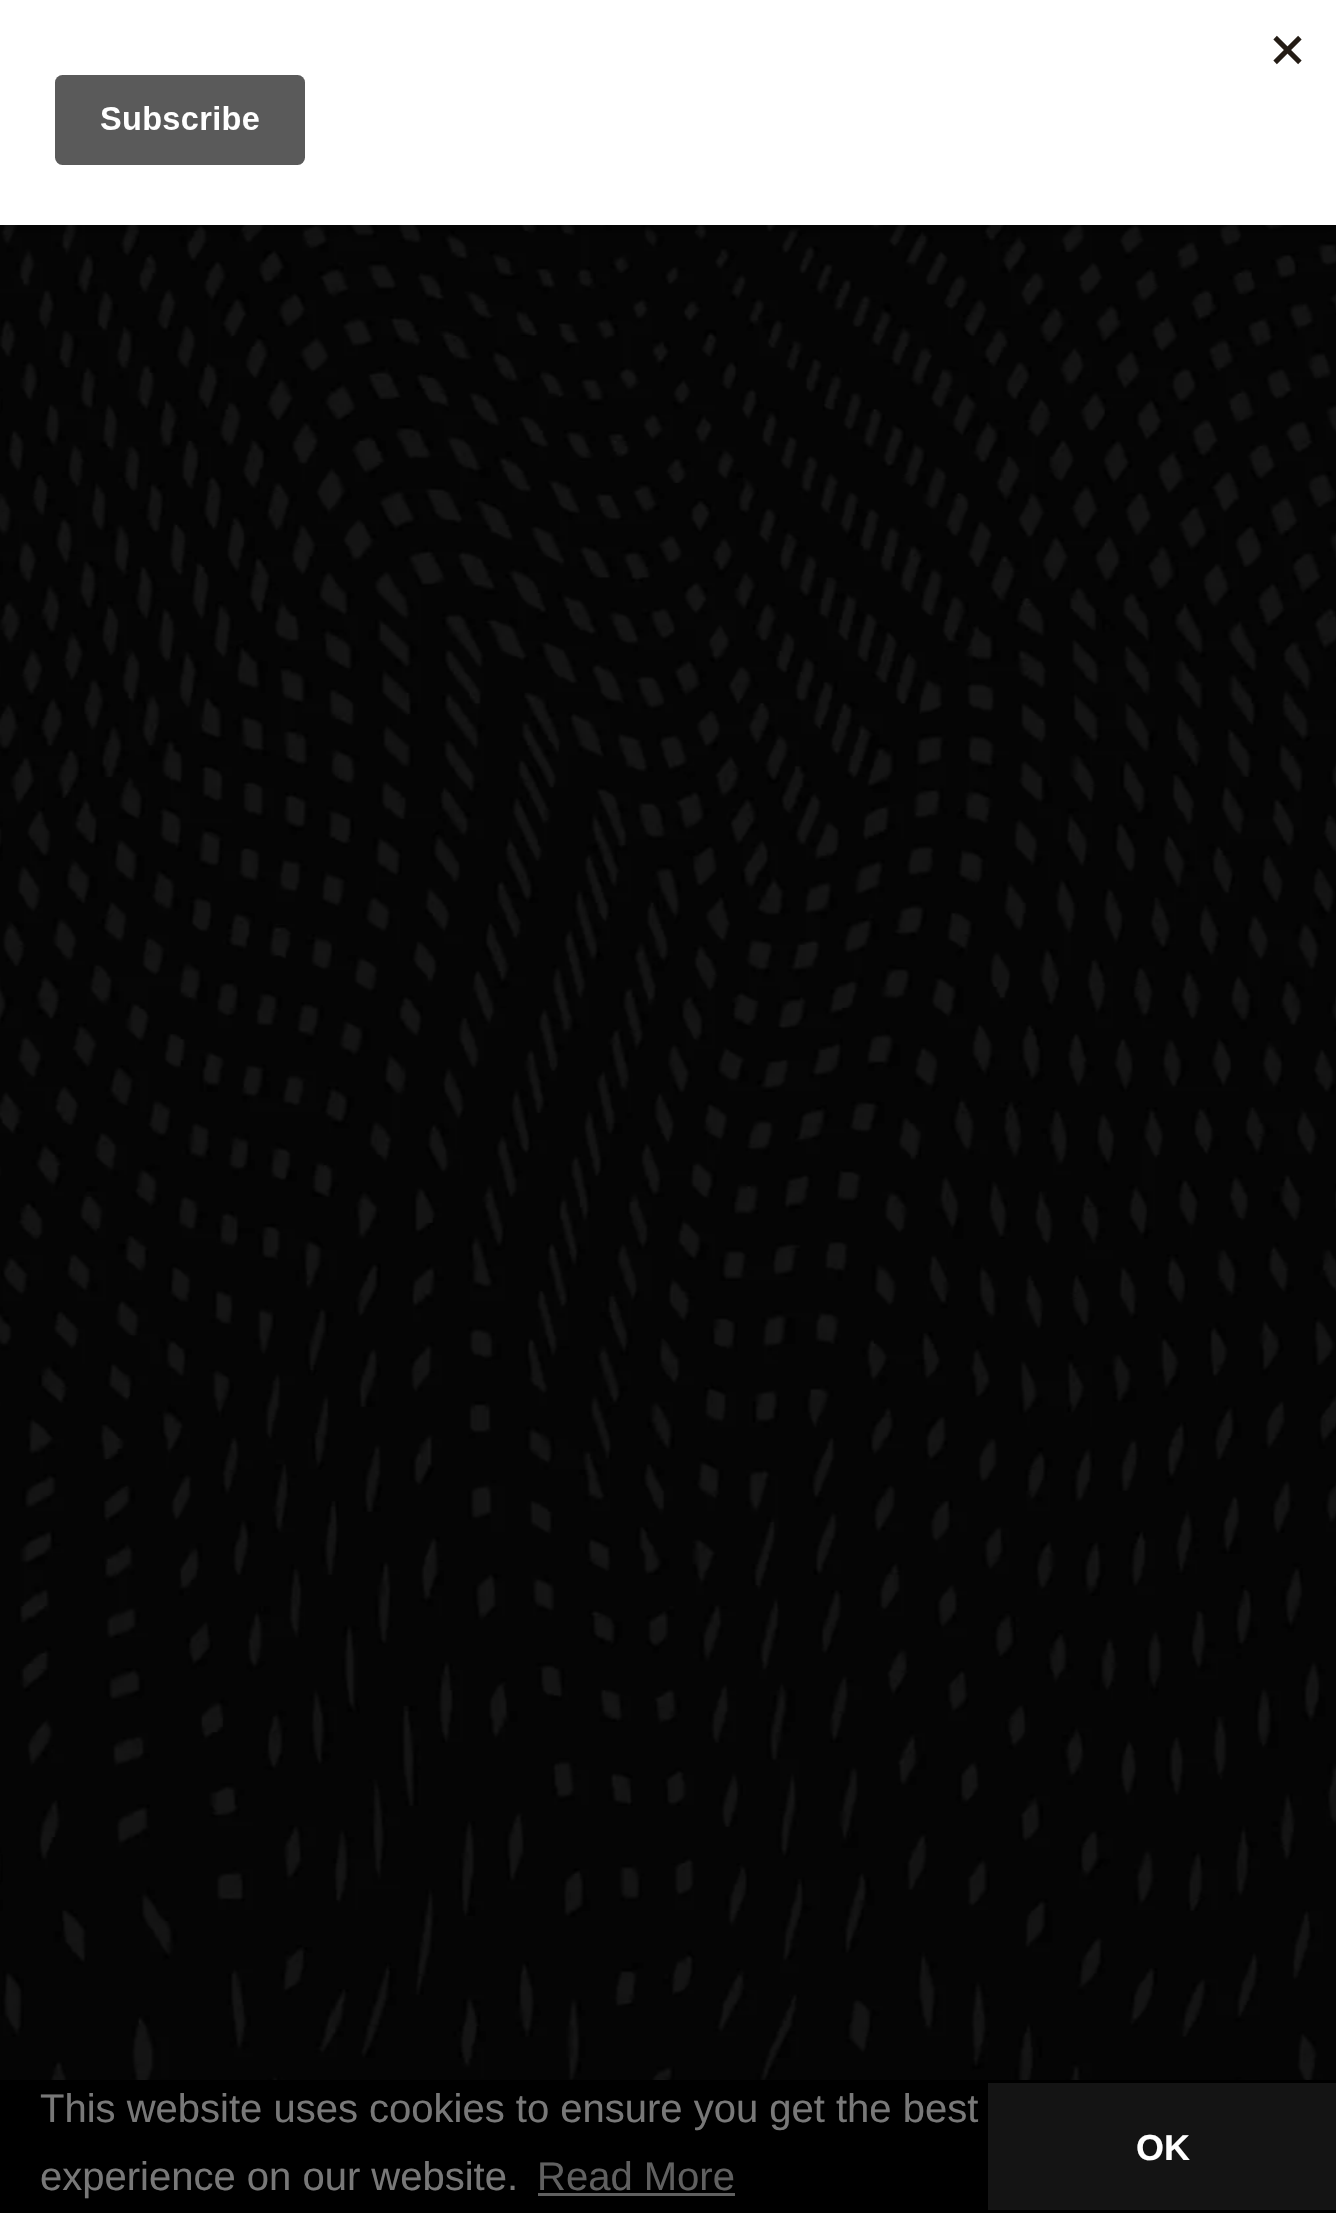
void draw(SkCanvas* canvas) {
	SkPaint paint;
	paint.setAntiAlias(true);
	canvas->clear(0xffffffff);
	canvas->drawImageRect(SkImages::DeferredFromEncodedData(SkData::MakeFromFileName("img2.png")), SkRect::MakeXYWH(0, 225, 1336, 1855), SkSamplingOptions());
	paint.setColor(0x33000000);
	paint.setMaskFilter(SkMaskFilter::MakeBlur(kNormal_SkBlurStyle, 7.5));
	canvas->drawRect(SkRect::MakeXYWH(0, 8, 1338, 225), paint);
	paint.setMaskFilter(nullptr);
	paint.setColor(0xffffffff);
	canvas->drawRect(SkRect::MakeXYWH(0, 0, 1336, 225), paint);
	canvas->drawImageRect(SkImages::DeferredFromEncodedData(SkData::MakeFromFileName("img1.png")), SkRect::MakeXYWH(55, 35, 1247, 130), SkSamplingOptions());
	paint.setColor(0xff000000);
	canvas->drawRect(SkRect::MakeXYWH(0, 2080, 1336, 133), paint);
	SkFont f1(fontMgr->matchFamilyStyle("Liberation Sans", SkFontStyle::Normal()), 40);
	f1.setSubpixel(true);
	paint.setColor(0xff787878);
	canvas->drawString("This website uses cookies to ensure you get the best", 40, 2122, f1, paint);
	canvas->drawString("experience on our website.", 40, 2190, f1, paint);
	paint.setColor(0xff606060);
	canvas->drawString("Read More", 537, 2190, f1, paint);
	canvas->drawRect(SkRect::MakeXYWH(538, 2193, 197, 3), paint);
	paint.setColor(0xff141414);
	canvas->drawRect(SkRect::MakeXYWH(988, 2083, 348, 127), paint);
	SkFont f2(fontMgr->matchFamilyStyle("Liberation Sans", SkFontStyle::Bold()), 36);
	f2.setSubpixel(true);
	paint.setColor(0xffffffff);
	canvas->drawString("OK", 1136, 2160, f2, paint);
}
